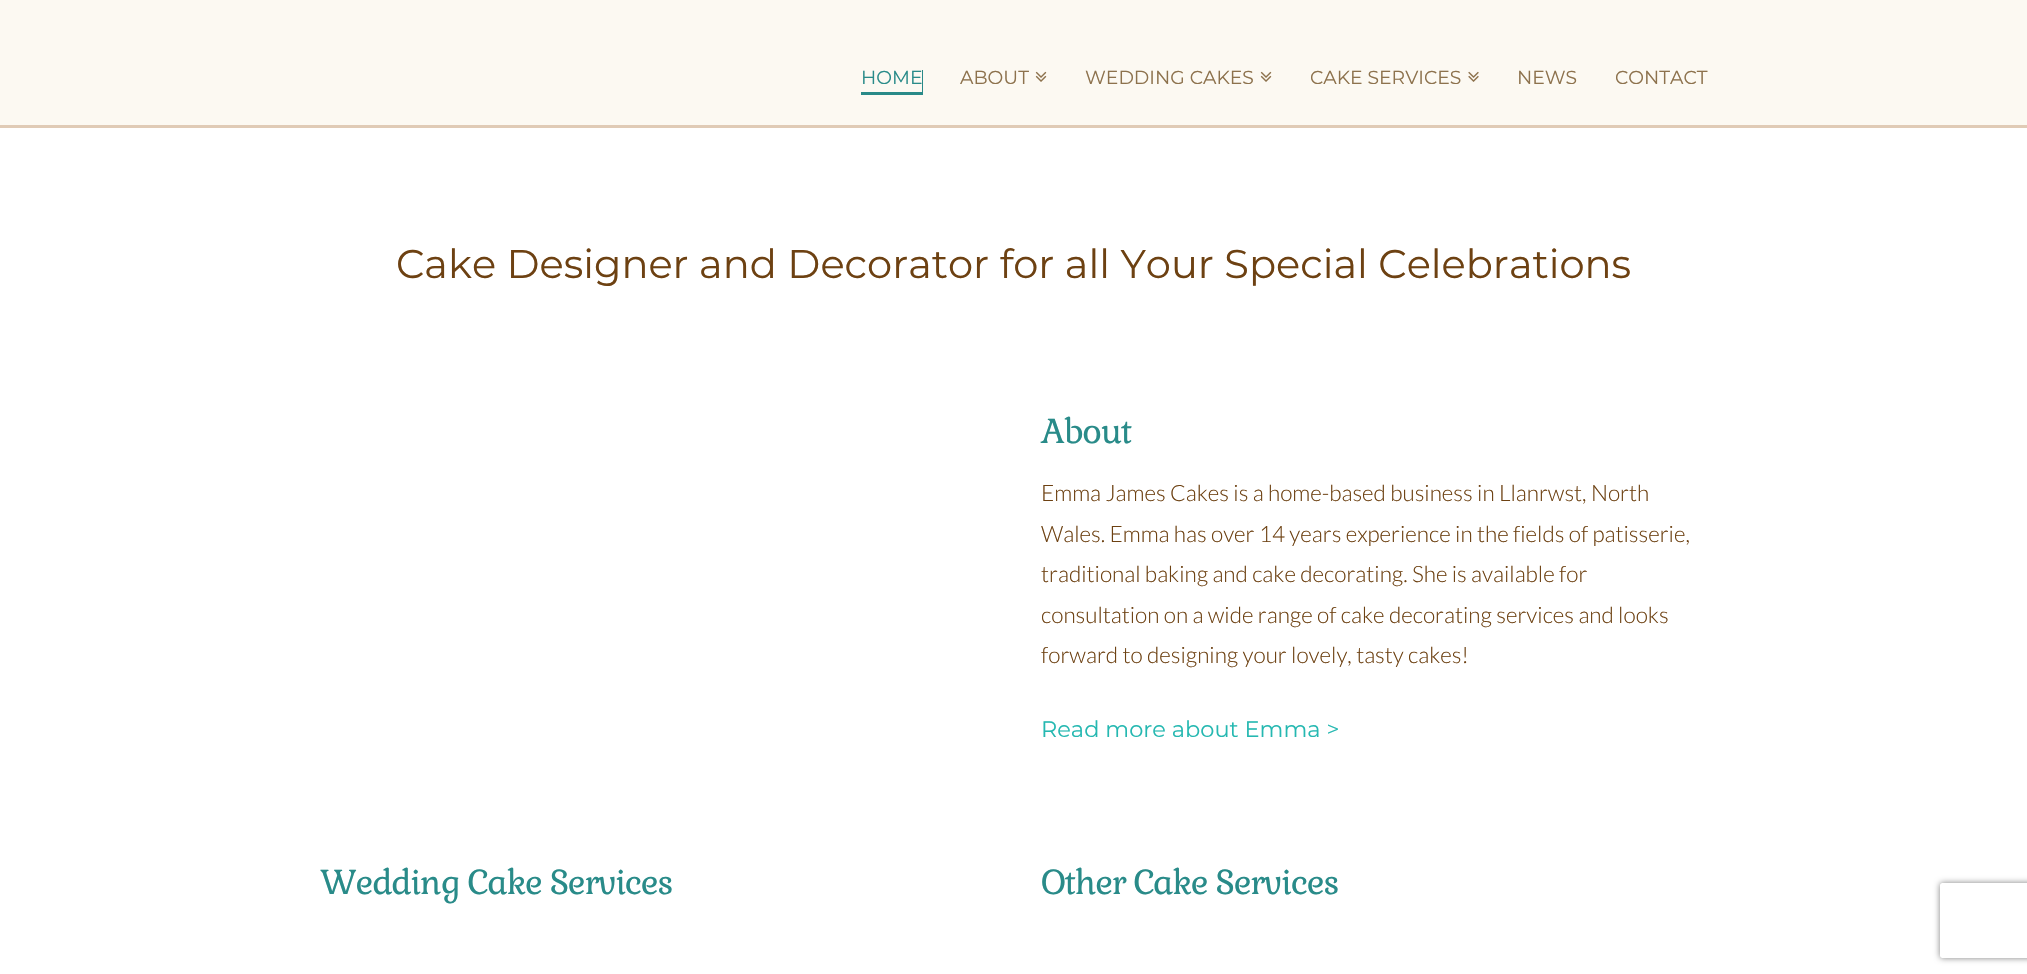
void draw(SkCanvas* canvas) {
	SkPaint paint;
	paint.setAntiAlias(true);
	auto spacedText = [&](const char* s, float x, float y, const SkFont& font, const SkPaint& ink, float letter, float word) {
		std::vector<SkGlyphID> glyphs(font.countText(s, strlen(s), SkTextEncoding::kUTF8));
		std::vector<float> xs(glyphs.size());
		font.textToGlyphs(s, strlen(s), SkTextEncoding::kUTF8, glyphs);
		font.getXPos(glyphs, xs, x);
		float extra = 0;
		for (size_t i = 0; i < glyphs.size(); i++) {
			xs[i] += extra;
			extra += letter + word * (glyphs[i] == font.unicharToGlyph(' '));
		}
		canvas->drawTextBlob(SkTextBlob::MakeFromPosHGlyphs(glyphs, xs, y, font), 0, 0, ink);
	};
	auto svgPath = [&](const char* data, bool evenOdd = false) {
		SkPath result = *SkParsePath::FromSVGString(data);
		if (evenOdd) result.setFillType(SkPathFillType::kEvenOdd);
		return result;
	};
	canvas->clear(0xffffffff);
	paint.setColor(0xfffcf9f2);
	canvas->drawRect(SkRect::MakeXYWH(0, 0, 2027, 125), paint);
	paint.setColor(0xffe0cbb6);
	canvas->drawRect(SkRect::MakeXYWH(0, 125, 2027, 3), paint);
	paint.setColor(0xff298a88);
	canvas->drawPath(svgPath("M861 70V95H923V70H922V92H861Z"), paint);
	SkFont f1(fontMgr->matchFamilyStyle("Montserrat", SkFontStyle(100, SkFontStyle::kNormal_Width, SkFontStyle::kUpright_Slant)), 18.75);
	f1.setSubpixel(true);
	paint.setColor(0xff298b89);
	canvas->drawString("HOME", 861, 84, f1, paint);
	paint.setColor(0xff8d724d);
	canvas->drawString("ABOUT", 960, 84, f1, paint);
	canvas->drawImageRect(SkImages::DeferredFromEncodedData(SkData::MakeFromFileName("img1.png")), SkRect::MakeXYWH(1035, 71, 12, 11), SkSamplingOptions());
	canvas->drawString("WEDDING CAKES", 1085, 84, f1, paint);
	canvas->drawImageRect(SkImages::DeferredFromEncodedData(SkData::MakeFromFileName("img1.png")), SkRect::MakeXYWH(1260, 71, 12, 11), SkSamplingOptions());
	canvas->drawString("CAKE SERVICES", 1310, 84, f1, paint);
	canvas->drawImageRect(SkImages::DeferredFromEncodedData(SkData::MakeFromFileName("img2.png")), SkRect::MakeXYWH(1468, 71, 11, 11), SkSamplingOptions());
	canvas->drawString("NEWS", 1517, 84, f1, paint);
	canvas->drawString("CONTACT", 1615, 84, f1, paint);
	SkFont f2(fontMgr->matchFamilyStyle("Montserrat", SkFontStyle(100, SkFontStyle::kNormal_Width, SkFontStyle::kUpright_Slant)), 40);
	f2.setSubpixel(true);
	paint.setColor(0xff6d4112);
	canvas->drawString("Cake Designer and Decorator for all Your Special Celebrations", 396, 278, f2, paint);
	SkFont f3(fontMgr->matchFamilyStyle("Gabriela", SkFontStyle::Normal()), 33.75);
	f3.setSubpixel(true);
	paint.setColor(0xff298b89);
	spacedText("About", 1041, 443, f3, paint, -1.2, 0);
	SkFont f4(fontMgr->matchFamilyStyle("Lato", SkFontStyle(300, SkFontStyle::kNormal_Width, SkFontStyle::kUpright_Slant)), 22.5);
	f4.setSubpixel(true);
	paint.setColor(0xff6d4112);
	canvas->drawString("Emma James Cakes is a home-based business in Llanrwst, North", 1041, 501, f4, paint);
	canvas->drawString("Wales. Emma has over 14 years experience in the fields of patisserie,", 1041, 542, f4, paint);
	canvas->drawString("traditional baking and cake decorating. She is available for", 1041, 582, f4, paint);
	canvas->drawString("consultation on a wide range of cake decorating services and looks", 1041, 623, f4, paint);
	canvas->drawString("forward to designing your lovely, tasty cakes!", 1041, 663, f4, paint);
	SkFont f5(fontMgr->matchFamilyStyle("Montserrat", SkFontStyle(100, SkFontStyle::kNormal_Width, SkFontStyle::kUpright_Slant)), 22.5);
	f5.setSubpixel(true);
	paint.setColor(0xff25b8b1);
	canvas->drawString("Read more about Emma >", 1041, 737, f5, paint);
	paint.setColor(0xff298b89);
	spacedText("Wedding Cake Services", 320, 894, f3, paint, -1.2, 0);
	spacedText("Other Cake Services", 1041, 894, f3, paint, -1.2, 0);
	canvas->save();
	canvas->clipPath(svgPath("M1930 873H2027V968H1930ZM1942.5 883H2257.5C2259 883 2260 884 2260 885.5V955.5C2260 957 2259 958 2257.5 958H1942.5C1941 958 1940 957 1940 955.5V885.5C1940 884 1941 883 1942.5 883Z", true), true);
	paint.setColor(0xff808080);
	paint.setMaskFilter(SkMaskFilter::MakeBlur(kNormal_SkBlurStyle, 3));
	canvas->drawRoundRect(SkRect::MakeXYWH(1940, 883, 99, 75), 2.5, 2.5, paint);
	paint.setMaskFilter(nullptr);
	canvas->restore();
}
